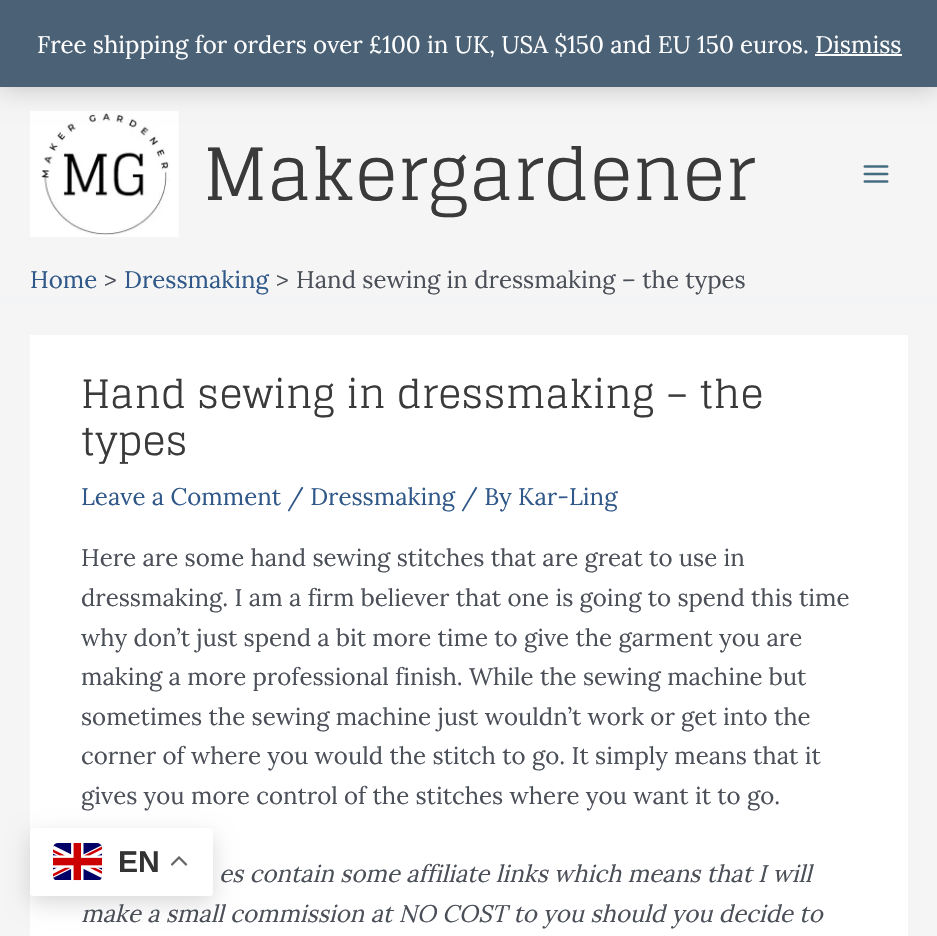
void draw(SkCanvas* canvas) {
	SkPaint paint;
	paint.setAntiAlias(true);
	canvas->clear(0xfff5f5f5);
	canvas->drawImageRect(SkImages::DeferredFromEncodedData(SkData::MakeFromFileName("img1.png")), SkRect::MakeXYWH(30, 111, 149, 126), SkSamplingOptions());
	paint.setColor(0x33000000);
	paint.setMaskFilter(SkMaskFilter::MakeBlur(kNormal_SkBlurStyle, 12));
	canvas->drawRect(SkRect::MakeXYWH(0, 2, 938, 87), paint);
	paint.setMaskFilter(nullptr);
	paint.setColor(0xff4a6176);
	canvas->drawRect(SkRect::MakeXYWH(0, 0, 937, 87), paint);
	SkFont f1(fontMgr->matchFamilyStyle("Lora", SkFontStyle::Normal()), 24);
	f1.setSubpixel(true);
	paint.setColor(0xffffffff);
	canvas->drawString("Free shipping for orders over £100 in UK, USA $150 and EU 150 euros. Dismiss", 37, 53, f1, paint);
	canvas->drawRect(SkRect::MakeXYWH(815, 54, 87, 2), paint);
	paint.setColor(0xfff2f5f7);
	canvas->drawRect(SkRect::MakeXYWH(0, 297, 937, 2), paint);
	SkFont f2(fontMgr->matchFamilyStyle("Glegoo", SkFontStyle::Normal()), 72);
	f2.setSubpixel(true);
	paint.setColor(0xff3a3a3a);
	canvas->drawString("Makergardener", 203, 200, f2, paint);
	canvas->drawImageRect(SkImages::DeferredFromEncodedData(SkData::MakeFromFileName("img2.png")), SkRect::MakeXYWH(863, 165, 26, 18), SkSamplingOptions());
	paint.setColor(0xff305889);
	canvas->drawString("Home", 30, 288, f1, paint);
	paint.setColor(0xff4b4f58);
	canvas->drawString(">", 104, 288, f1, paint);
	paint.setColor(0xff305889);
	canvas->drawString("Dressmaking", 124, 288, f1, paint);
	paint.setColor(0xff4b4f58);
	canvas->drawString(">", 276, 288, f1, paint);
	canvas->drawString("Hand sewing in dressmaking – the types", 296, 288, f1, paint);
	paint.setColor(0xffffffff);
	canvas->drawRect(SkRect::MakeXYWH(30, 335, 878, 601), paint);
	SkFont f3(fontMgr->matchFamilyStyle("Glegoo", SkFontStyle::Normal()), 39);
	f3.setSubpixel(true);
	paint.setColor(0xff3a3a3a);
	canvas->drawString("Hand sewing in dressmaking – the", 81, 408, f3, paint);
	canvas->drawString("types", 81, 455, f3, paint);
	paint.setColor(0xff305889);
	canvas->drawString("Leave a Comment / Dressmaking / By Kar-Ling", 81, 505, f1, paint);
	paint.setColor(0xff4b4f58);
	canvas->drawString("Here are some hand sewing stitches that are great to use in", 81, 566, f1, paint);
	canvas->drawString("dressmaking. I am a firm believer that one is going to spend this time", 81, 606, f1, paint);
	canvas->drawString("why don’t just spend a bit more time to give the garment you are", 81, 646, f1, paint);
	canvas->drawString("making a more professional finish. While the sewing machine but", 81, 685, f1, paint);
	canvas->drawString("sometimes the sewing machine just wouldn’t work or get into the", 81, 725, f1, paint);
	canvas->drawString("corner of where you would the stitch to go. It simply means that it", 81, 764, f1, paint);
	canvas->drawString("gives you more control of the stitches where you want it to go.", 81, 804, f1, paint);
	SkFont f4(fontMgr->matchFamilyStyle("Lora", SkFontStyle::Italic()), 24);
	f4.setSubpixel(true);
	canvas->drawString("es contain some affiliate links which means that I will", 219, 882, f4, paint);
	canvas->drawString("make a small commission at NO COST to you should you decide to", 81, 922, f4, paint);
	paint.setColor(0x26000000);
	paint.setMaskFilter(SkMaskFilter::MakeBlur(kNormal_SkBlurStyle, 11));
	canvas->drawRoundRect(SkRect::MakeXYWH(30, 836, 183, 67), 3, 3, paint);
	paint.setMaskFilter(nullptr);
	paint.setColor(0xffffffff);
	canvas->drawRoundRect(SkRect::MakeXYWH(30, 828, 183, 68), 3, 3, paint);
	canvas->drawImageRect(SkImages::DeferredFromEncodedData(SkData::MakeFromFileName("img3.png")), SkRect::MakeXYWH(53, 843, 49, 38), SkSamplingOptions());
	SkFont f5(fontMgr->matchFamilyStyle("Liberation Sans", SkFontStyle::Bold()), 30);
	f5.setSubpixel(true);
	paint.setColor(0xff333333);
	canvas->drawString("EN", 118, 872, f5, paint);
	canvas->drawImageRect(SkImages::DeferredFromEncodedData(SkData::MakeFromFileName("img4.png")), SkRect::MakeXYWH(171, 856, 17, 10), SkSamplingOptions());
}
